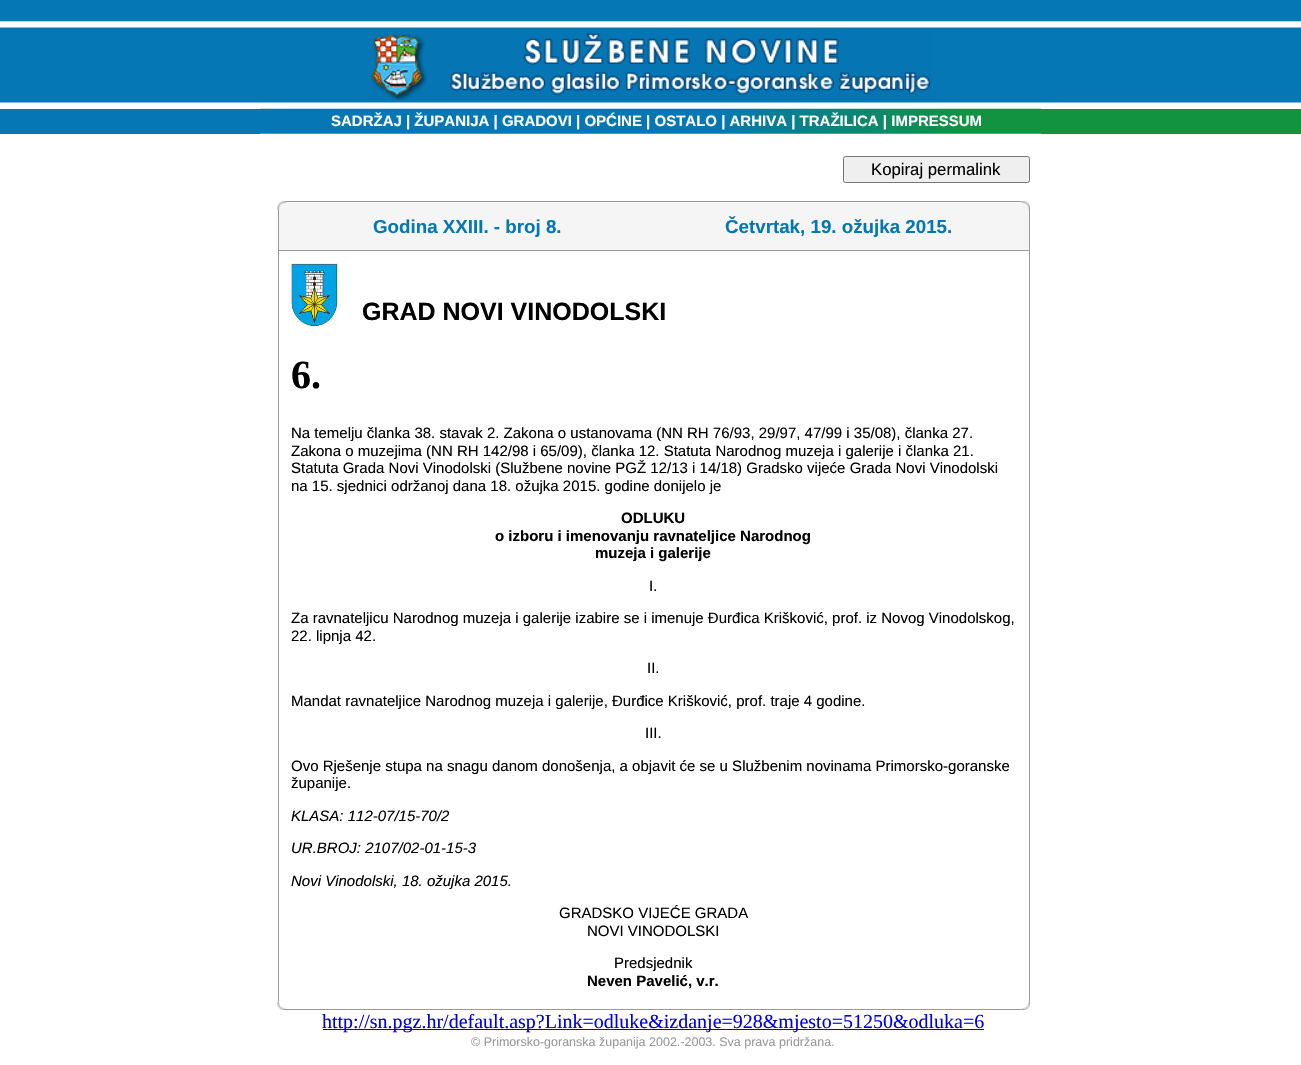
void draw(SkCanvas* canvas) {
	SkPaint paint;
	paint.setAntiAlias(true);
	canvas->clear(0xffffffff);
	canvas->drawImageRect(SkImages::DeferredFromEncodedData(SkData::MakeFromFileName("img1.png")), SkRect::MakeXYWH(0, 0, 1301, 103), SkSamplingOptions());
	canvas->drawImageRect(SkImages::DeferredFromEncodedData(SkData::MakeFromFileName("img2.png")), SkRect::MakeXYWH(371, 32, 560, 68), SkSamplingOptions());
	paint.setColor(0xff0577b4);
	canvas->drawRect(SkRect::MakeXYWH(0, 109, 260, 25), paint);
	canvas->drawImageRect(SkImages::DeferredFromEncodedData(SkData::MakeFromFileName("img3.png")), SkRect::MakeXYWH(260, 108, 782, 26), SkSamplingOptions());
	SkFont f1(fontMgr->matchFamilyStyle("Liberation Sans", SkFontStyle::Bold()), 15);
	f1.setSubpixel(true);
	paint.setColor(0xffffffff);
	canvas->drawString("SADRŽAJ | ŽUPANIJA | GRADOVI | OPĆINE | OSTALO | ARHIVA | TRAŽILICA | IMPRESSUM", 331, 126, f1, paint);
	paint.setColor(0xff11933f);
	canvas->drawRect(SkRect::MakeXYWH(1041, 109, 260, 25), paint);
	paint.setColor(0xffefefef);
	canvas->drawRoundRect(SkRect::MakeXYWH(843.5, 156.5, 186, 26), 2, 2, paint);
	paint.setStroke(true);
	paint.setStrokeWidth(1);
	paint.setColor(0xff767676);
	canvas->drawRoundRect(SkRect::MakeXYWH(843.5, 156.5, 186, 26), 2, 2, paint);
	SkFont f2(fontMgr->matchFamilyStyle("Liberation Sans", SkFontStyle::Normal()), 16.75);
	f2.setSubpixel(true);
	paint.setStroke(false);
	paint.setColor(0xff000000);
	canvas->drawString("Kopiraj permalink", 871, 175, f2, paint);
	paint.setColor(0xff999999);
	canvas->drawRect(SkRect::MakeXYWH(286, 201, 735, 1), paint);
	paint.setColor(0xfff5f5f5);
	canvas->drawRect(SkRect::MakeXYWH(286, 203, 735, 7), paint);
	canvas->drawImageRect(SkImages::DeferredFromEncodedData(SkData::MakeFromFileName("img4.png")), SkRect::MakeXYWH(277, 201, 10, 9), SkSamplingOptions());
	canvas->drawImageRect(SkImages::DeferredFromEncodedData(SkData::MakeFromFileName("img5.png")), SkRect::MakeXYWH(1021, 201, 9, 9), SkSamplingOptions());
	paint.setColor(0xff999999);
	canvas->drawRect(SkRect::MakeXYWH(278, 210, 1, 40), paint);
	paint.setColor(0xfff5f5f5);
	canvas->drawRect(SkRect::MakeXYWH(279, 210, 750, 40), paint);
	SkFont f3(fontMgr->matchFamilyStyle("Liberation Sans", SkFontStyle::Bold()), 18.75);
	f3.setSubpixel(true);
	paint.setColor(0xff0577b4);
	canvas->drawString("Godina XXIII. - broj 8.", 373, 233, f3, paint);
	canvas->drawString("Četvrtak, 19. ožujka 2015.", 725, 233, f3, paint);
	paint.setColor(0xff999999);
	canvas->drawRect(SkRect::MakeXYWH(1029, 210, 1, 40), paint);
	canvas->drawRect(SkRect::MakeXYWH(278, 250, 752, 1), paint);
	canvas->drawRect(SkRect::MakeXYWH(278, 251, 1, 750), paint);
	canvas->drawImageRect(SkImages::DeferredFromEncodedData(SkData::MakeFromFileName("img6.png")), SkRect::MakeXYWH(291, 263, 47, 64), SkSamplingOptions());
	SkFont f4(fontMgr->matchFamilyStyle("Liberation Sans", SkFontStyle::Bold()), 25);
	f4.setSubpixel(true);
	paint.setColor(0xff000000);
	canvas->drawString("GRAD NOVI VINODOLSKI", 362, 320, f4, paint);
	SkFont f5(fontMgr->matchFamilyStyle("Liberation Serif", SkFontStyle::Bold()), 40);
	f5.setSubpixel(true);
	canvas->drawString("6.", 291, 388, f5, paint);
	SkFont f6(fontMgr->matchFamilyStyle("Liberation Sans", SkFontStyle::Normal()), 15);
	f6.setSubpixel(true);
	canvas->drawString("Na temelju članka 38. stavak 2. Zakona o ustanovama (NN RH 76/93, 29/97, 47/99 i 35/08), članka 27.", 291, 438, f6, paint);
	canvas->drawString("Zakona o muzejima (NN RH 142/98 i 65/09), članka 12. Statuta Narodnog muzeja i galerije i članka 21.", 291, 456, f6, paint);
	canvas->drawString("Statuta Grada Novi Vinodolski (Službene novine PGŽ 12/13 i 14/18) Gradsko vijeće Grada Novi Vinodolski", 291, 473, f6, paint);
	canvas->drawString("na 15. sjednici održanoj dana 18. ožujka 2015. godine donijelo je", 291, 491, f6, paint);
	canvas->drawString("ODLUKU", 621, 523, f1, paint);
	canvas->drawString("o izboru i imenovanju ravnateljice Narodnog", 495, 541, f1, paint);
	canvas->drawString("muzeja i galerije", 595, 558, f1, paint);
	canvas->drawString("I.", 649, 591, f6, paint);
	canvas->drawString("Za ravnateljicu Narodnog muzeja i galerije izabire se i imenuje Đurđica Krišković, prof. iz Novog Vinodolskog,", 291, 623, f6, paint);
	canvas->drawString("22. lipnja 42.", 291, 641, f6, paint);
	canvas->drawString("II.", 647, 673, f6, paint);
	canvas->drawString("Mandat ravnateljice Narodnog muzeja i galerije, Đurđice Krišković, prof. traje 4 godine.", 291, 706, f6, paint);
	canvas->drawString("III.", 645, 738, f6, paint);
	canvas->drawString("Ovo Rješenje stupa na snagu danom donošenja, a objavit će se u Službenim novinama Primorsko-goranske", 291, 771, f6, paint);
	canvas->drawString("županije.", 291, 788, f6, paint);
	SkFont f7(fontMgr->matchFamilyStyle("Liberation Sans", SkFontStyle::Italic()), 15);
	f7.setSubpixel(true);
	canvas->drawString("KLASA: 112-07/15-70/2", 291, 821, f7, paint);
	canvas->drawString("UR.BROJ: 2107/02-01-15-3", 291, 853, f7, paint);
	canvas->drawString("Novi Vinodolski, 18. ožujka 2015.", 291, 886, f7, paint);
	canvas->drawString("GRADSKO VIJEĆE GRADA", 559, 918, f6, paint);
	canvas->drawString("NOVI VINODOLSKI", 587, 936, f6, paint);
	canvas->drawString("Predsjednik", 614, 968, f6, paint);
	canvas->drawString("Neven Pavelić, v.r.", 587, 986, f1, paint);
	paint.setColor(0xff999999);
	canvas->drawRect(SkRect::MakeXYWH(1029, 251, 1, 750), paint);
	canvas->drawRect(SkRect::MakeXYWH(286, 1009, 735, 1), paint);
	canvas->drawImageRect(SkImages::DeferredFromEncodedData(SkData::MakeFromFileName("img7.png")), SkRect::MakeXYWH(277, 1001, 10, 9), SkSamplingOptions());
	canvas->drawImageRect(SkImages::DeferredFromEncodedData(SkData::MakeFromFileName("img8.png")), SkRect::MakeXYWH(1021, 1001, 9, 9), SkSamplingOptions());
	paint.setColor(0xff0000ee);
	canvas->drawRect(SkRect::MakeXYWH(323, 1029, 661, 1), paint);
	SkFont f8(fontMgr->matchFamilyStyle("Liberation Serif", SkFontStyle::Normal()), 20);
	f8.setSubpixel(true);
	canvas->drawString("http://sn.pgz.hr/default.asp?Link=odluke&izdanje=928&mjesto=51250&odluka=6", 322, 1028, f8, paint);
	SkFont f9(fontMgr->matchFamilyStyle("Liberation Sans", SkFontStyle::Normal()), 12.5);
	f9.setSubpixel(true);
	paint.setColor(0xff999999);
	canvas->drawString("© Primorsko-goranska županija 2002.-2003. Sva prava pridržana.", 471, 1046, f9, paint);
}
